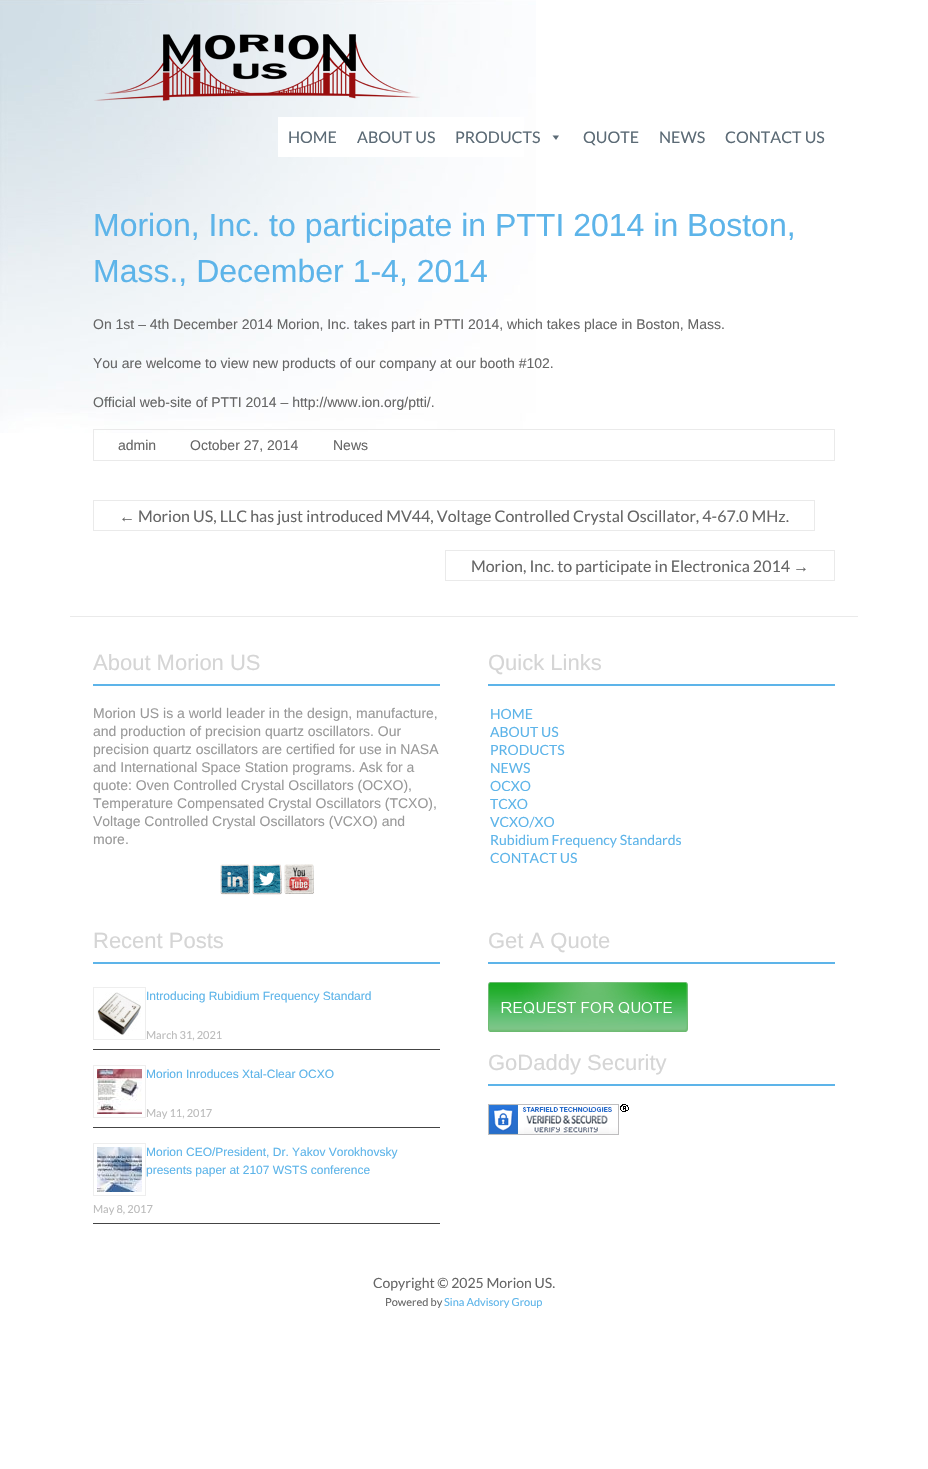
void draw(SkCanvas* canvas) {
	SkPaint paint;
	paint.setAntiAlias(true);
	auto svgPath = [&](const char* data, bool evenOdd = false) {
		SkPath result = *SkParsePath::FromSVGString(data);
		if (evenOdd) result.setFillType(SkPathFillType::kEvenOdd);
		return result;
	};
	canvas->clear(0xffffffff);
	canvas->drawImageRect(SkImages::DeferredFromEncodedData(SkData::MakeFromFileName("img1.png")), SkRect::MakeXYWH(0, 0, 536, 433), SkSamplingOptions());
	canvas->drawImageRect(SkImages::DeferredFromEncodedData(SkData::MakeFromFileName("img2.png")), SkRect::MakeXYWH(94, 34, 326, 67), SkSamplingOptions());
	paint.setColor(0xffffffff);
	canvas->drawRect(SkRect::MakeXYWH(278, 117, 246, 40), paint);
	SkFont f1(fontMgr->matchFamilyStyle("Lato", SkFontStyle::Normal()), 16);
	f1.setSubpixel(true);
	paint.setColor(0xff5b6a75);
	canvas->drawString("HOME", 288, 143, f1, paint);
	canvas->drawString("ABOUT US", 357, 143, f1, paint);
	canvas->drawString("PRODUCTS", 455, 143, f1, paint);
	canvas->drawPath(svgPath("M559 135.5L556 140L552.5 135.5Z"), paint);
	canvas->drawString("QUOTE", 583, 143, f1, paint);
	canvas->drawString("NEWS", 659, 143, f1, paint);
	canvas->drawString("CONTACT US", 725, 143, f1, paint);
	SkFont f2(fontMgr->matchFamilyStyle("Liberation Sans", SkFontStyle::Normal()), 32);
	f2.setSubpixel(true);
	paint.setColor(0xff5db4e9);
	canvas->drawString("Morion, Inc. to participate in PTTI 2014 in Boston,", 93, 236, f2, paint);
	canvas->drawString("Mass., December 1-4, 2014", 93, 282, f2, paint);
	SkFont f3(fontMgr->matchFamilyStyle("Liberation Sans", SkFontStyle::Normal()), 14);
	f3.setSubpixel(true);
	paint.setColor(0xff666666);
	canvas->drawString("On 1st – 4th December 2014 Morion, Inc. takes part in PTTI 2014, which takes place in Boston, Mass.", 93, 329, f3, paint);
	canvas->drawString("You are welcome to view new products of our company at our booth #102.", 93, 368, f3, paint);
	canvas->drawString("Official web-site of PTTI 2014 – http://www.ion.org/ptti/.", 93, 407, f3, paint);
	paint.setStroke(true);
	paint.setStrokeWidth(1);
	paint.setColor(0xffeaeaea);
	canvas->drawRect(SkRect::MakeXYWH(93.5, 429.5, 741, 31), paint);
	paint.setStroke(false);
	paint.setColor(0xff666666);
	canvas->drawString("admin", 118, 450, f3, paint);
	canvas->drawString("October 27, 2014", 190, 450, f3, paint);
	canvas->drawString("News", 333, 450, f3, paint);
	SkFont f4(fontMgr->matchFamilyStyle("Liberation Sans", SkFontStyle::Normal()), 16);
	f4.setSubpixel(true);
	canvas->drawString("←", 119, 522, f4, paint);
	paint.setColor(0xffeaeaea);
	canvas->drawRect(SkRect::MakeXYWH(93, 530, 42, 1), paint);
	canvas->drawRect(SkRect::MakeXYWH(93, 500, 722, 1), paint);
	canvas->drawRect(SkRect::MakeXYWH(93, 500, 1, 31), paint);
	canvas->drawRect(SkRect::MakeXYWH(814, 500, 1, 31), paint);
	canvas->drawRect(SkRect::MakeXYWH(135, 530, 680, 1), paint);
	paint.setColor(0xff666666);
	canvas->drawString("Morion US, LLC has just introduced MV44, Voltage Controlled Crystal Oscillator, 4-67.0 MHz.", 138, 522, f1, paint);
	canvas->drawString("Morion, Inc. to participate in Electronica 2014", 471, 572, f1, paint);
	paint.setColor(0xffeaeaea);
	canvas->drawRect(SkRect::MakeXYWH(445, 550, 390, 1), paint);
	canvas->drawRect(SkRect::MakeXYWH(445, 580, 348, 1), paint);
	canvas->drawRect(SkRect::MakeXYWH(445, 550, 1, 31), paint);
	paint.setColor(0xff666666);
	canvas->drawString("→", 793, 572, f4, paint);
	paint.setColor(0xffeaeaea);
	canvas->drawRect(SkRect::MakeXYWH(834, 550, 1, 31), paint);
	canvas->drawRect(SkRect::MakeXYWH(793, 580, 42, 1), paint);
	canvas->drawRect(SkRect::MakeXYWH(70, 616, 788, 1), paint);
	paint.setColor(0xff5db4e9);
	canvas->drawRect(SkRect::MakeXYWH(93, 684, 347, 2), paint);
	SkFont f5(fontMgr->matchFamilyStyle("Liberation Sans", SkFontStyle::Normal()), 22);
	f5.setSubpixel(true);
	paint.setColor(0xffd5d5d5);
	canvas->drawString("About Morion US", 93, 670, f5, paint);
	paint.setColor(0xff999999);
	canvas->drawString("Morion US is a world leader in the design, manufacture,", 93, 718, f3, paint);
	canvas->drawString("and production of precision quartz oscillators. Our", 93, 736, f3, paint);
	canvas->drawString("precision quartz oscillators are certified for use in NASA", 93, 754, f3, paint);
	canvas->drawString("and International Space Station programs. Ask for a", 93, 772, f3, paint);
	canvas->drawString("quote: Oven Controlled Crystal Oscillators (OCXO),", 93, 790, f3, paint);
	canvas->drawString("Temperature Compensated Crystal Oscillators (TCXO),", 93, 808, f3, paint);
	canvas->drawString("Voltage Controlled Crystal Oscillators (VCXO) and", 93, 826, f3, paint);
	canvas->drawString("more.", 93, 844, f3, paint);
	canvas->drawImageRect(SkImages::DeferredFromEncodedData(SkData::MakeFromFileName("img3.png")), SkRect::MakeXYWH(220, 864, 30, 31), SkSamplingOptions());
	canvas->drawImageRect(SkImages::DeferredFromEncodedData(SkData::MakeFromFileName("img4.png")), SkRect::MakeXYWH(252, 864, 30, 31), SkSamplingOptions());
	canvas->drawImageRect(SkImages::DeferredFromEncodedData(SkData::MakeFromFileName("img5.png")), SkRect::MakeXYWH(284, 864, 30, 30), SkSamplingOptions());
	paint.setColor(0xff5db4e9);
	canvas->drawRect(SkRect::MakeXYWH(488, 684, 347, 2), paint);
	paint.setColor(0xffd5d5d5);
	canvas->drawString("Quick Links", 488, 670, f5, paint);
	SkFont f6(fontMgr->matchFamilyStyle("Lato", SkFontStyle::Normal()), 14);
	f6.setSubpixel(true);
	paint.setColor(0xff5db4e9);
	canvas->drawString("HOME", 490, 719, f6, paint);
	canvas->drawString("ABOUT US", 490, 737, f6, paint);
	canvas->drawString("PRODUCTS", 490, 755, f6, paint);
	canvas->drawString("NEWS", 490, 773, f6, paint);
	canvas->drawString("OCXO", 490, 791, f6, paint);
	canvas->drawString("TCXO", 490, 809, f6, paint);
	canvas->drawString("VCXO/XO", 490, 827, f6, paint);
	canvas->drawString("Rubidium Frequency Standards", 490, 845, f6, paint);
	canvas->drawString("CONTACT US", 490, 863, f6, paint);
	canvas->drawRect(SkRect::MakeXYWH(93, 962, 347, 2), paint);
	paint.setColor(0xffd5d5d5);
	canvas->drawString("Recent Posts", 93, 948, f5, paint);
	paint.setColor(0xff444444);
	canvas->drawRect(SkRect::MakeXYWH(93, 1049, 347, 1), paint);
	paint.setStroke(true);
	paint.setColor(0xffeeeeee);
	canvas->drawRect(SkRect::MakeXYWH(93.5, 987.5, 52, 52), paint);
	canvas->drawImageRect(SkImages::DeferredFromEncodedData(SkData::MakeFromFileName("img6.png")), SkRect::MakeXYWH(97, 992, 44, 44), SkSamplingOptions());
	SkFont f7(fontMgr->matchFamilyStyle("Liberation Sans", SkFontStyle::Normal()), 12);
	f7.setSubpixel(true);
	paint.setStroke(false);
	paint.setColor(0xff5db4e9);
	canvas->drawString("Introducing Rubidium Frequency Standard", 146, 1000, f7, paint);
	SkFont f8(fontMgr->matchFamilyStyle("Lato", SkFontStyle::Normal()), 11);
	f8.setSubpixel(true);
	paint.setColor(0xffbbbbbb);
	canvas->drawString("March 31, 2021", 146, 1039, f8, paint);
	paint.setColor(0xff444444);
	canvas->drawRect(SkRect::MakeXYWH(93, 1127, 347, 1), paint);
	paint.setStroke(true);
	paint.setColor(0xffeeeeee);
	canvas->drawRect(SkRect::MakeXYWH(93.5, 1065.5, 52, 52), paint);
	canvas->drawImageRect(SkImages::DeferredFromEncodedData(SkData::MakeFromFileName("img7.png")), SkRect::MakeXYWH(97, 1069, 45, 45), SkSamplingOptions());
	paint.setStroke(false);
	paint.setColor(0xff5db4e9);
	canvas->drawString("Morion Inroduces Xtal-Clear OCXO", 146, 1078, f7, paint);
	paint.setColor(0xffbbbbbb);
	canvas->drawString("May 11, 2017", 146, 1117, f8, paint);
	paint.setColor(0xff444444);
	canvas->drawRect(SkRect::MakeXYWH(93, 1223, 347, 1), paint);
	paint.setStroke(true);
	paint.setColor(0xffeeeeee);
	canvas->drawRect(SkRect::MakeXYWH(93.5, 1143.5, 52, 52), paint);
	canvas->drawImageRect(SkImages::DeferredFromEncodedData(SkData::MakeFromFileName("img8.png")), SkRect::MakeXYWH(97, 1147, 45, 45), SkSamplingOptions());
	paint.setStroke(false);
	paint.setColor(0xff5db4e9);
	canvas->drawString("Morion CEO/President, Dr. Yakov Vorokhovsky", 146, 1156, f7, paint);
	canvas->drawString("presents paper at 2107 WSTS conference", 146, 1174, f7, paint);
	paint.setColor(0xffbbbbbb);
	canvas->drawString("May 8, 2017", 93, 1213, f8, paint);
	paint.setColor(0xff5db4e9);
	canvas->drawRect(SkRect::MakeXYWH(488, 962, 347, 2), paint);
	paint.setColor(0xffd5d5d5);
	canvas->drawString("Get A Quote", 488, 948, f5, paint);
	canvas->drawImageRect(SkImages::DeferredFromEncodedData(SkData::MakeFromFileName("img9.png")), SkRect::MakeXYWH(488, 982, 200, 50), SkSamplingOptions());
	paint.setColor(0xff5db4e9);
	canvas->drawRect(SkRect::MakeXYWH(488, 1084, 347, 2), paint);
	paint.setColor(0xffd5d5d5);
	canvas->drawString("GoDaddy Security", 488, 1070, f5, paint);
	canvas->drawImageRect(SkImages::DeferredFromEncodedData(SkData::MakeFromFileName("img10.png")), SkRect::MakeXYWH(488, 1104, 141, 31), SkSamplingOptions());
	paint.setColor(0xff666666);
	canvas->drawString("Copyright © 2025 Morion US.", 373, 1288, f6, paint);
	canvas->drawString("Powered by", 385, 1306, f8, paint);
	paint.setColor(0xff5db4e9);
	canvas->drawString("Sina Advisory Group", 444, 1306, f8, paint);
}
